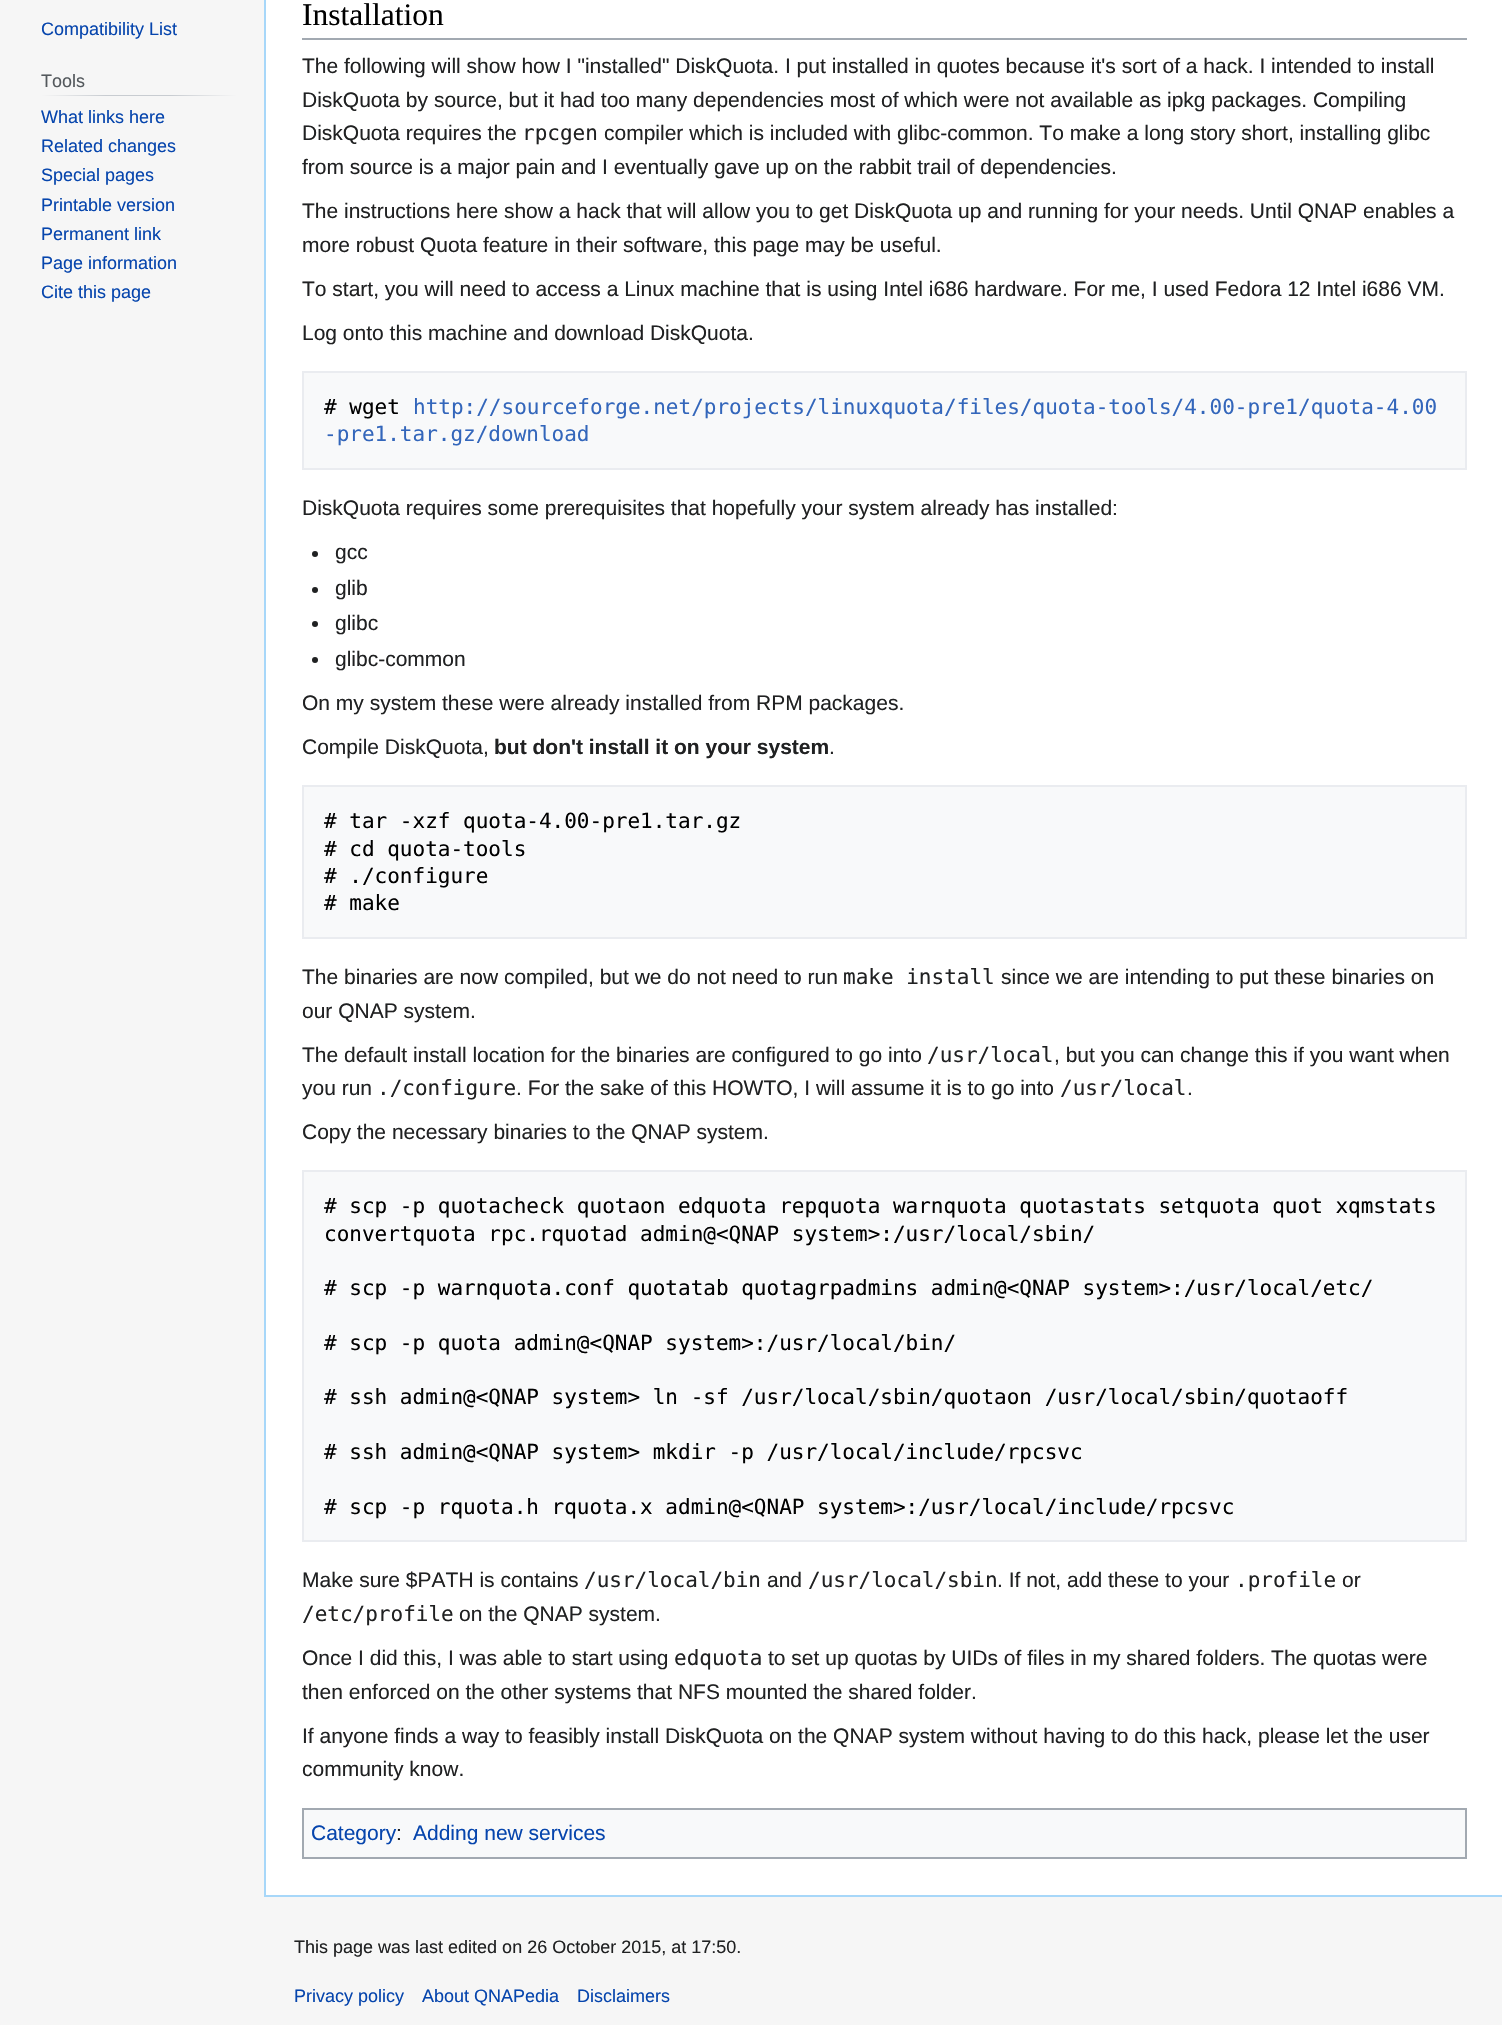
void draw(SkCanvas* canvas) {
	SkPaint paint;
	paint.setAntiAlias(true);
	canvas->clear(0xfff6f6f6);
	SkFont f1(fontMgr->matchFamilyStyle("Liberation Sans", SkFontStyle::Normal()), 18);
	f1.setSubpixel(true);
	paint.setColor(0xff0645ad);
	canvas->drawString("Compatibility List", 41, 35, f1, paint);
	{
		const SkColor colors[] = {0xfff6f6f6, 0xffc8ccd1, 0xffc8ccd1, 0xfff6f6f6};
		const float stops[] = {0, 0.33, 0.66, 1};
		const SkPoint ends[] = {{41, 95}, {237, 95}};
		paint.setShader(SkGradientShader::MakeLinear(ends, colors, stops, 4, SkTileMode::kClamp));
		paint.setAlpha(255);
	}
	canvas->drawRect(SkRect::MakeXYWH(41, 95, 196, 1), paint);
	paint.setShader(nullptr);
	paint.setColor(0xff54595d);
	canvas->drawString("Tools", 41, 87, f1, paint);
	paint.setColor(0xff0645ad);
	canvas->drawString("What links here", 41, 123, f1, paint);
	canvas->drawString("Related changes", 41, 152, f1, paint);
	canvas->drawString("Special pages", 41, 181, f1, paint);
	canvas->drawString("Printable version", 41, 211, f1, paint);
	canvas->drawString("Permanent link", 41, 240, f1, paint);
	canvas->drawString("Page information", 41, 269, f1, paint);
	canvas->drawString("Cite this page", 41, 298, f1, paint);
	paint.setColor(0xffffffff);
	canvas->drawRect(SkRect::MakeXYWH(266, 0, 1236, 1895), paint);
	paint.setColor(0xffa7d7f9);
	canvas->drawRect(SkRect::MakeXYWH(264, 1895, 1238, 2), paint);
	canvas->drawRect(SkRect::MakeXYWH(264, 0, 2, 1896), paint);
	paint.setColor(0xffa2a9b1);
	canvas->drawRect(SkRect::MakeXYWH(302, 38, 1165, 2), paint);
	SkFont f2(fontMgr->matchFamilyStyle("Liberation Serif", SkFontStyle::Normal()), 31.5);
	f2.setSubpixel(true);
	paint.setColor(0xff000000);
	canvas->drawString("Installation", 302, 25, f2, paint);
	SkFont f3(fontMgr->matchFamilyStyle("Liberation Sans", SkFontStyle::Normal()), 21);
	f3.setSubpixel(true);
	paint.setColor(0xff202122);
	canvas->drawString("The following will show how I \"installed\" DiskQuota. I put installed in quotes because it's sort of a hack. I intended to install", 302, 73, f3, paint);
	canvas->drawString("DiskQuota by source, but it had too many dependencies most of which were not available as ipkg packages. Compiling", 302, 107, f3, paint);
	canvas->drawString("DiskQuota requires the", 302, 140, f3, paint);
	SkFont f4(fontMgr->matchFamilyStyle("DejaVu Sans Mono", SkFontStyle::Normal()), 21);
	f4.setSubpixel(true);
	canvas->drawString("rpcgen", 522, 140, f4, paint);
	canvas->drawString("compiler which is included with glibc-common. To make a long story short, installing glibc", 604, 140, f3, paint);
	canvas->drawString("from source is a major pain and I eventually gave up on the rabbit trail of dependencies.", 302, 174, f3, paint);
	canvas->drawString("The instructions here show a hack that will allow you to get DiskQuota up and running for your needs. Until QNAP enables a", 302, 218, f3, paint);
	canvas->drawString("more robust Quota feature in their software, this page may be useful.", 302, 252, f3, paint);
	canvas->drawString("To start, you will need to access a Linux machine that is using Intel i686 hardware. For me, I used Fedora 12 Intel i686 VM.", 302, 296, f3, paint);
	canvas->drawString("Log onto this machine and download DiskQuota.", 302, 340, f3, paint);
	paint.setColor(0xfff8f9fa);
	canvas->drawRect(SkRect::MakeXYWH(303, 372, 1163, 97), paint);
	paint.setStroke(true);
	paint.setStrokeWidth(2);
	paint.setColor(0xffeaecf0);
	canvas->drawRect(SkRect::MakeXYWH(303, 372, 1163, 97), paint);
	paint.setStroke(false);
	paint.setColor(0xff000000);
	canvas->drawString("# wget", 324, 414, f4, paint);
	paint.setColor(0xff3366bb);
	canvas->drawString("http://sourceforge.net/projects/linuxquota/files/quota-tools/4.00-pre1/quota-4.00", 413, 414, f4, paint);
	canvas->drawString("-pre1.tar.gz/download", 324, 441, f4, paint);
	paint.setColor(0xff202122);
	canvas->drawString("DiskQuota requires some prerequisites that hopefully your system already has installed:", 302, 515, f3, paint);
	canvas->drawCircle(315, 554, 3, paint);
	canvas->drawString("gcc", 335, 559, f3, paint);
	canvas->drawCircle(315, 590, 3, paint);
	canvas->drawString("glib", 335, 595, f3, paint);
	canvas->drawCircle(315, 624, 3, paint);
	canvas->drawString("glibc", 335, 630, f3, paint);
	canvas->drawCircle(315, 660, 3, paint);
	canvas->drawString("glibc-common", 335, 666, f3, paint);
	canvas->drawString("On my system these were already installed from RPM packages.", 302, 710, f3, paint);
	canvas->drawString("Compile DiskQuota,", 302, 754, f3, paint);
	SkFont f5(fontMgr->matchFamilyStyle("Liberation Sans", SkFontStyle::Bold()), 21);
	f5.setSubpixel(true);
	canvas->drawString("but don't install it on your system", 494, 754, f5, paint);
	canvas->drawString(".", 829, 754, f3, paint);
	paint.setColor(0xfff8f9fa);
	canvas->drawRect(SkRect::MakeXYWH(303, 786, 1163, 152), paint);
	paint.setStroke(true);
	paint.setColor(0xffeaecf0);
	canvas->drawRect(SkRect::MakeXYWH(303, 786, 1163, 152), paint);
	paint.setStroke(false);
	paint.setColor(0xff000000);
	canvas->drawString("# tar -xzf quota-4.00-pre1.tar.gz", 324, 828, f4, paint);
	canvas->drawString("# cd quota-tools", 324, 856, f4, paint);
	canvas->drawString("# ./configure", 324, 883, f4, paint);
	canvas->drawString("# make", 324, 910, f4, paint);
	paint.setColor(0xff202122);
	canvas->drawString("The binaries are now compiled, but we do not need to run", 302, 984, f3, paint);
	canvas->drawString("make install", 843, 984, f4, paint);
	canvas->drawString("since we are intending to put these binaries on", 1001, 984, f3, paint);
	canvas->drawString("our QNAP system.", 302, 1018, f3, paint);
	canvas->drawString("The default install location for the binaries are configured to go into", 302, 1062, f3, paint);
	canvas->drawString("/usr/local", 927, 1062, f4, paint);
	canvas->drawString(", but you can change this if you want when", 1054, 1062, f3, paint);
	canvas->drawString("you run", 302, 1095, f3, paint);
	canvas->drawString("./configure", 377, 1095, f4, paint);
	canvas->drawString(". For the sake of this HOWTO, I will assume it is to go into", 516, 1095, f3, paint);
	canvas->drawString("/usr/local", 1060, 1095, f4, paint);
	canvas->drawString(".", 1187, 1095, f3, paint);
	canvas->drawString("Copy the necessary binaries to the QNAP system.", 302, 1139, f3, paint);
	paint.setColor(0xfff8f9fa);
	canvas->drawRect(SkRect::MakeXYWH(303, 1171, 1163, 370), paint);
	paint.setStroke(true);
	paint.setColor(0xffeaecf0);
	canvas->drawRect(SkRect::MakeXYWH(303, 1171, 1163, 370), paint);
	paint.setStroke(false);
	paint.setColor(0xff000000);
	canvas->drawString("# scp -p quotacheck quotaon edquota repquota warnquota quotastats setquota quot xqmstats", 324, 1213, f4, paint);
	canvas->drawString("convertquota rpc.rquotad admin@<QNAP system>:/usr/local/sbin/", 324, 1241, f4, paint);
	canvas->drawString("# scp -p warnquota.conf quotatab quotagrpadmins admin@<QNAP system>:/usr/local/etc/", 324, 1295, f4, paint);
	canvas->drawString("# scp -p quota admin@<QNAP system>:/usr/local/bin/", 324, 1350, f4, paint);
	canvas->drawString("# ssh admin@<QNAP system> ln -sf /usr/local/sbin/quotaon /usr/local/sbin/quotaoff", 324, 1404, f4, paint);
	canvas->drawString("# ssh admin@<QNAP system> mkdir -p /usr/local/include/rpcsvc", 324, 1459, f4, paint);
	canvas->drawString("# scp -p rquota.h rquota.x admin@<QNAP system>:/usr/local/include/rpcsvc", 324, 1514, f4, paint);
	paint.setColor(0xff202122);
	canvas->drawString("Make sure $PATH is contains", 302, 1587, f3, paint);
	canvas->drawString("/usr/local/bin", 584, 1587, f4, paint);
	canvas->drawString("and", 767, 1587, f3, paint);
	canvas->drawString("/usr/local/sbin", 808, 1587, f4, paint);
	canvas->drawString(". If not, add these to your", 997, 1587, f3, paint);
	canvas->drawString(".profile", 1235, 1587, f4, paint);
	canvas->drawString("or", 1342, 1587, f3, paint);
	canvas->drawString("/etc/profile", 302, 1621, f4, paint);
	canvas->drawString("on the QNAP system.", 459, 1621, f3, paint);
	canvas->drawString("Once I did this, I was able to start using", 302, 1665, f3, paint);
	canvas->drawString("edquota", 674, 1665, f4, paint);
	canvas->drawString("to set up quotas by UIDs of files in my shared folders. The quotas were", 768, 1665, f3, paint);
	canvas->drawString("then enforced on the other systems that NFS mounted the shared folder.", 302, 1699, f3, paint);
	canvas->drawString("If anyone finds a way to feasibly install DiskQuota on the QNAP system without having to do this hack, please let the user", 302, 1743, f3, paint);
	canvas->drawString("community know.", 302, 1776, f3, paint);
	paint.setColor(0xfff8f9fa);
	canvas->drawRect(SkRect::MakeXYWH(303, 1809, 1163, 49), paint);
	paint.setStroke(true);
	paint.setColor(0xffa2a9b1);
	canvas->drawRect(SkRect::MakeXYWH(303, 1809, 1163, 49), paint);
	paint.setStroke(false);
	paint.setColor(0xff0645ad);
	canvas->drawString("Category", 311, 1840, f3, paint);
	paint.setColor(0xff202122);
	canvas->drawString(":", 396, 1840, f3, paint);
	paint.setColor(0xff0645ad);
	canvas->drawString("Adding new services", 413, 1840, f3, paint);
	paint.setColor(0xff202122);
	canvas->drawString("This page was last edited on 26 October 2015, at 17:50.", 294, 1953, f1, paint);
	paint.setColor(0xff0645ad);
	canvas->drawString("Privacy policy", 294, 2002, f1, paint);
	canvas->drawString("About QNAPedia", 422, 2002, f1, paint);
	canvas->drawString("Disclaimers", 577, 2002, f1, paint);
}
